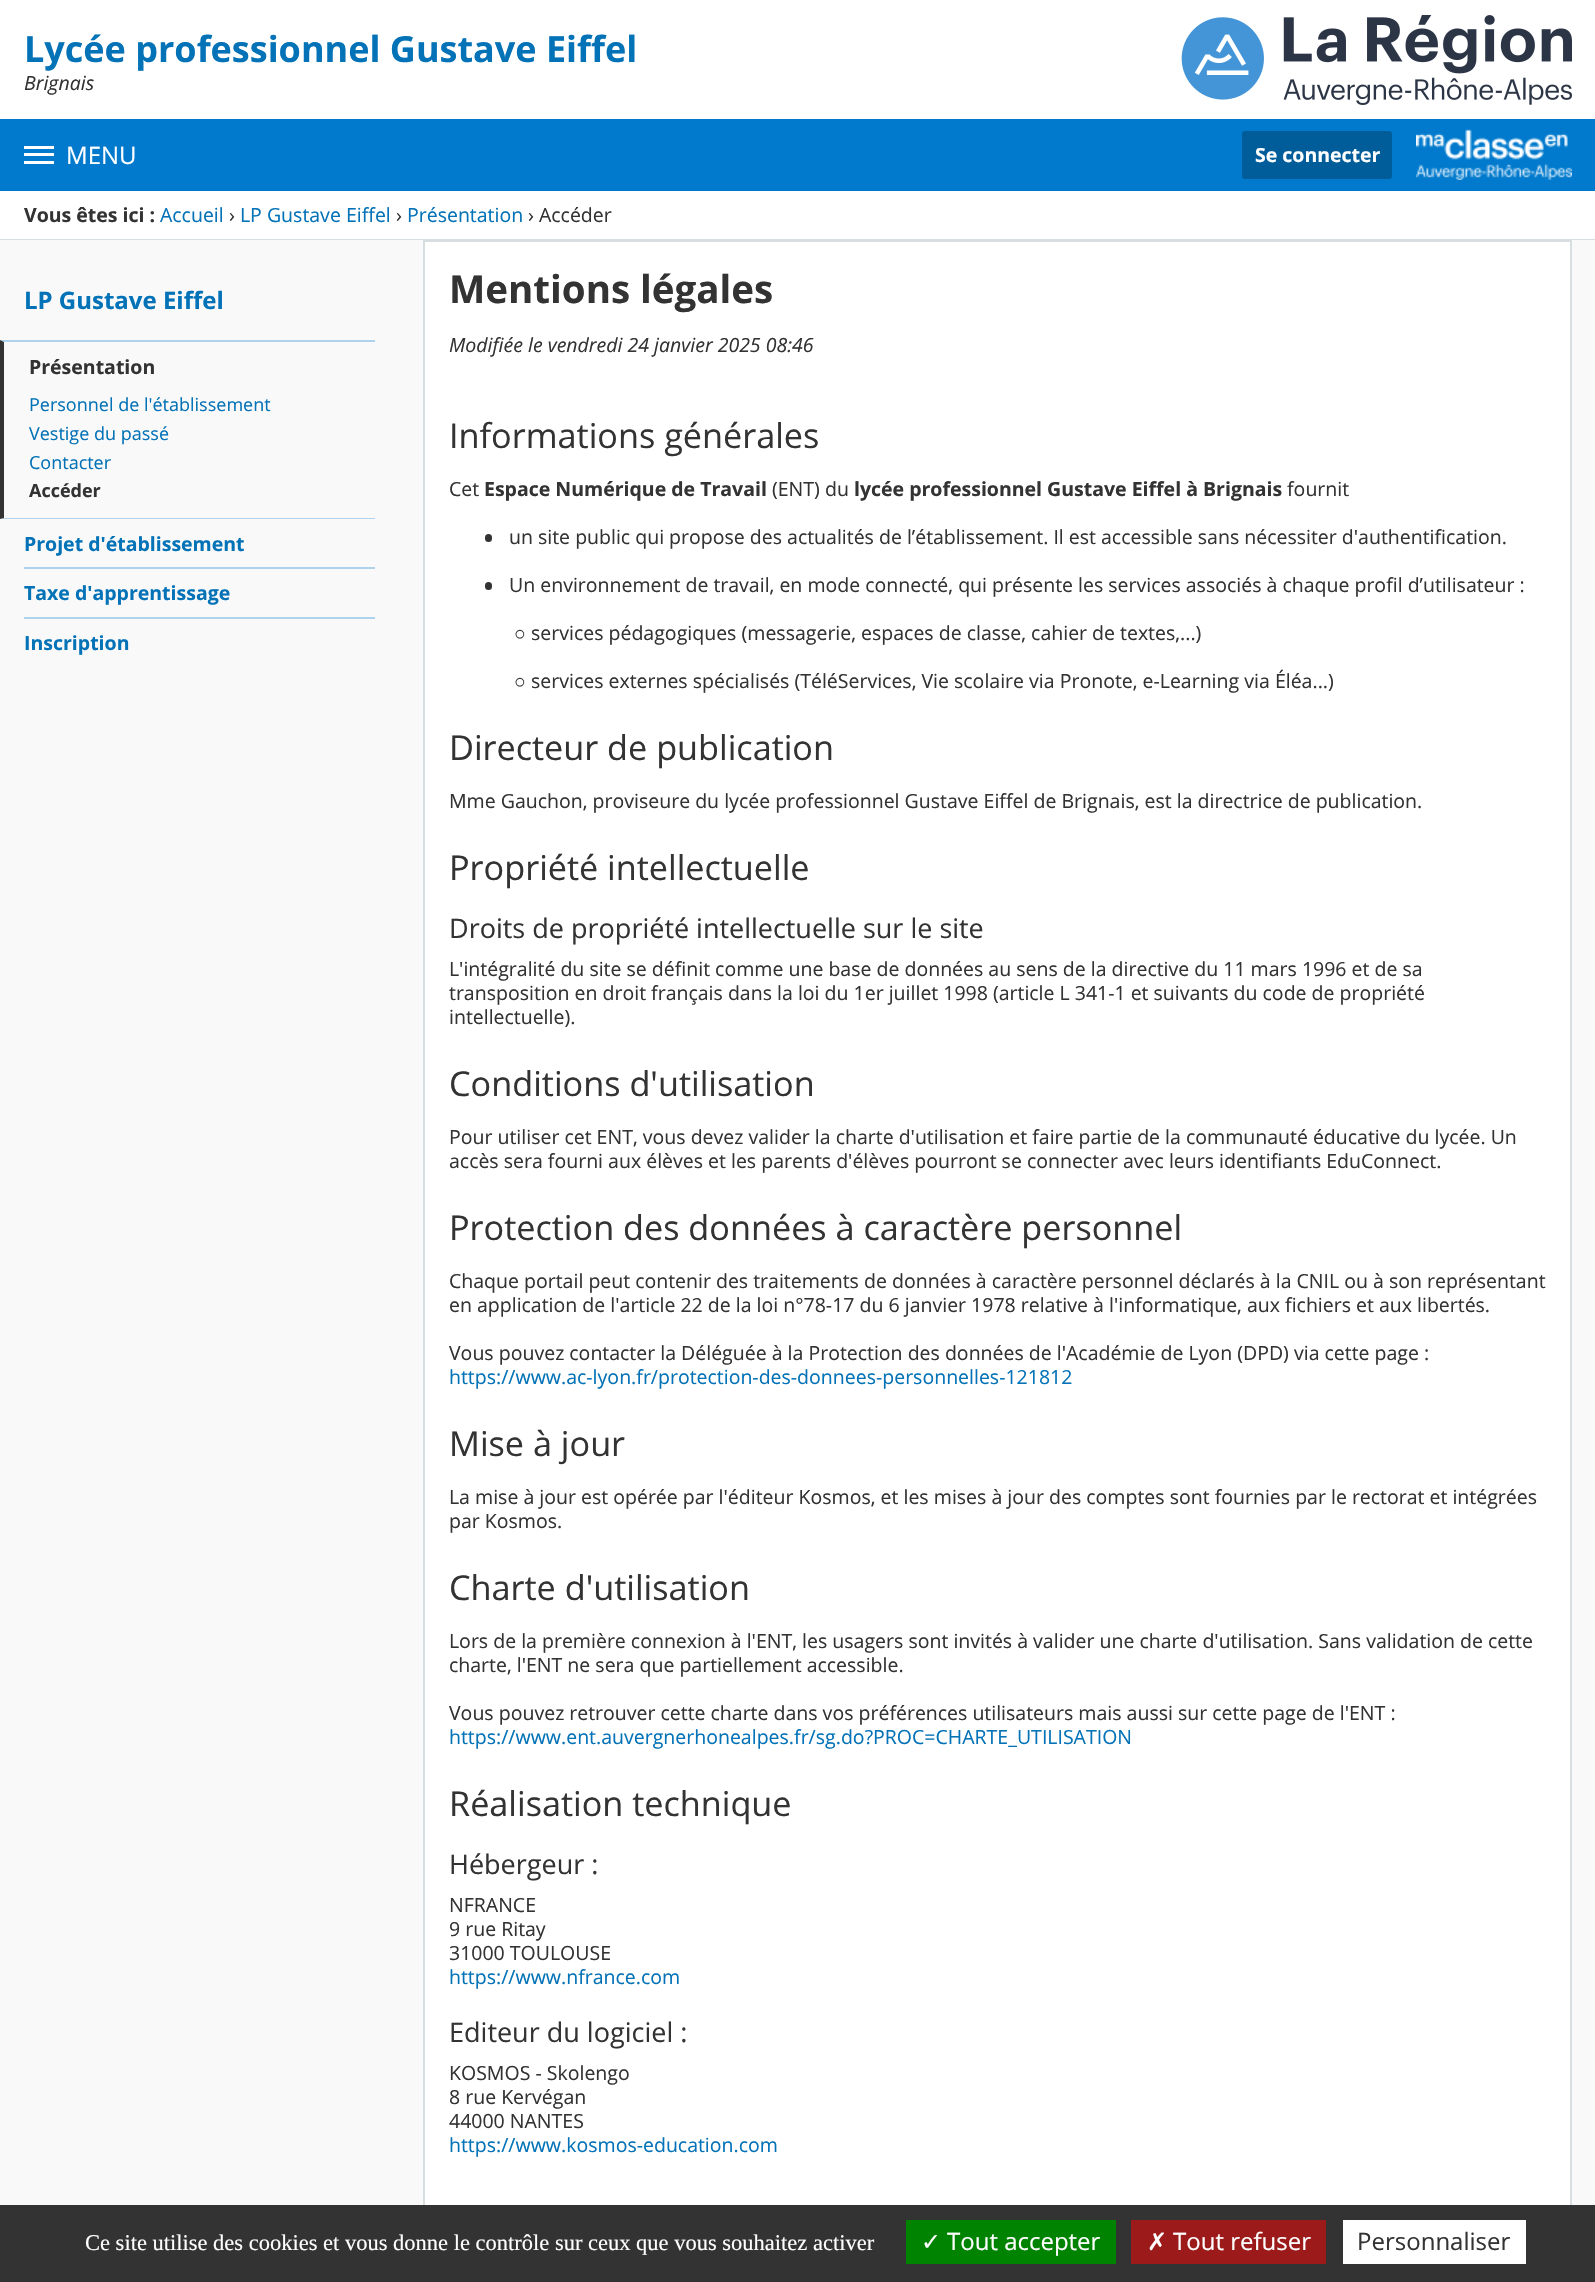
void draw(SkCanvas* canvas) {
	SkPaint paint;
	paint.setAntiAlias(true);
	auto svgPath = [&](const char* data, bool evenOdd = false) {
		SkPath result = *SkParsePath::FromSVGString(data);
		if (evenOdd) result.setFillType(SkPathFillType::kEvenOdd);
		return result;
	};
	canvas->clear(0xffffffff);
	SkFont f1(fontMgr->matchFamilyStyle("Open Sans", SkFontStyle::Bold()), 36);
	f1.setSubpixel(true);
	paint.setColor(0xff0372b7);
	canvas->drawString("Lycée professionnel Gustave Eiffel", 24, 62, f1, paint);
	SkFont f2(fontMgr->matchFamilyStyle("Open Sans", SkFontStyle::Italic()), 19.5);
	f2.setSubpixel(true);
	paint.setColor(0xff333333);
	canvas->drawString("Brignais", 24, 90, f2, paint);
	canvas->drawImageRect(SkImages::DeferredFromEncodedData(SkData::MakeFromFileName("img1.png")), SkRect::MakeXYWH(1181, 15, 391, 90), SkSamplingOptions());
	paint.setColor(0xff017acd);
	canvas->drawRect(SkRect::MakeXYWH(0, 119, 1595, 72), paint);
	canvas->drawImageRect(SkImages::DeferredFromEncodedData(SkData::MakeFromFileName("img2.png")), SkRect::MakeXYWH(1416, 129, 156, 51), SkSamplingOptions());
	paint.setColor(0xffffffff);
	canvas->drawRect(SkRect::MakeXYWH(24, 146, 30, 3), paint);
	canvas->drawRect(SkRect::MakeXYWH(24, 153, 30, 3), paint);
	canvas->drawRect(SkRect::MakeXYWH(24, 161, 30, 3), paint);
	SkFont f3(fontMgr->matchFamilyStyle("Open Sans", SkFontStyle::Normal()), 24);
	f3.setSubpixel(true);
	canvas->drawString("MENU", 66, 164, f3, paint);
	paint.setColor(0xff015c9a);
	canvas->drawRoundRect(SkRect::MakeXYWH(1242, 131, 150, 48), 3, 3, paint);
	SkFont f4(fontMgr->matchFamilyStyle("Open Sans", SkFontStyle::Bold()), 19.5);
	f4.setSubpixel(true);
	paint.setColor(0xffffffff);
	canvas->drawString("Se connecter", 1255, 162, f4, paint);
	paint.setColor(0xffd7dee2);
	canvas->drawRect(SkRect::MakeXYWH(0, 239, 1595, 1), paint);
	paint.setColor(0xff333333);
	canvas->drawString("Vous êtes ici :", 24, 222, f4, paint);
	SkFont f5(fontMgr->matchFamilyStyle("Open Sans", SkFontStyle::Normal()), 19.5);
	f5.setSubpixel(true);
	paint.setColor(0xff0372b7);
	canvas->drawString("Accueil", 160, 222, f5, paint);
	paint.setColor(0xff333333);
	canvas->drawString("›", 229, 222, f5, paint);
	paint.setColor(0xff0372b7);
	canvas->drawString("LP Gustave Eiffel", 240, 222, f5, paint);
	paint.setColor(0xff333333);
	canvas->drawString("›", 396, 222, f5, paint);
	paint.setColor(0xff0372b7);
	canvas->drawString("Présentation", 407, 222, f5, paint);
	paint.setColor(0xff333333);
	canvas->drawString("› Accéder", 528, 222, f5, paint);
	paint.setColor(0xfff9f9f9);
	canvas->drawRect(SkRect::MakeXYWH(0, 240, 1595, 1965), paint);
	SkFont f6(fontMgr->matchFamilyStyle("Open Sans", SkFontStyle::Bold()), 24);
	f6.setSubpixel(true);
	paint.setColor(0xff0372b7);
	canvas->drawString("LP Gustave Eiffel", 24, 309, f6, paint);
	paint.setColor(0xffafd3ec);
	canvas->drawPath(svgPath("M0 340H375V342H4Z"), paint);
	canvas->drawPath(svgPath("M375 519H0L4 518H375Z"), paint);
	paint.setColor(0xff333333);
	canvas->drawPath(svgPath("M0 519V340L4 342V518Z"), paint);
	canvas->drawString("Présentation", 29, 374, f4, paint);
	SkFont f7(fontMgr->matchFamilyStyle("Open Sans", SkFontStyle::Normal()), 18);
	f7.setSubpixel(true);
	paint.setColor(0xff0372b7);
	canvas->drawString("Personnel de l'établissement", 29, 411, f7, paint);
	canvas->drawString("Vestige du passé", 29, 440, f7, paint);
	canvas->drawString("Contacter", 29, 469, f7, paint);
	SkFont f8(fontMgr->matchFamilyStyle("Open Sans", SkFontStyle::Bold()), 18);
	f8.setSubpixel(true);
	paint.setColor(0xff333333);
	canvas->drawString("Accéder", 29, 497, f8, paint);
	paint.setColor(0xffafd3ec);
	canvas->drawRect(SkRect::MakeXYWH(24, 567, 351, 2), paint);
	paint.setColor(0xff0372b7);
	canvas->drawString("Projet d'établissement", 24, 551, f4, paint);
	paint.setColor(0xffafd3ec);
	canvas->drawRect(SkRect::MakeXYWH(24, 617, 351, 2), paint);
	paint.setColor(0xff0372b7);
	canvas->drawString("Taxe d'apprentissage", 24, 600, f4, paint);
	canvas->drawString("Inscription", 24, 650, f4, paint);
	paint.setColor(0xffffffff);
	canvas->drawRect(SkRect::MakeXYWH(425, 242, 1145, 1963), paint);
	paint.setStroke(true);
	paint.setStrokeWidth(2);
	paint.setColor(0xffd7dee2);
	canvas->drawRect(SkRect::MakeXYWH(424, 241, 1147, 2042), paint);
	SkFont f9(fontMgr->matchFamilyStyle("Open Sans", SkFontStyle::Bold()), 38.5);
	f9.setSubpixel(true);
	paint.setStroke(false);
	paint.setColor(0xff333333);
	canvas->drawString("Mentions légales", 449, 303, f9, paint);
	canvas->drawString("Modifiée le vendredi 24 janvier 2025 08:46", 449, 352, f2, paint);
	SkFont f10(fontMgr->matchFamilyStyle("Open Sans", SkFontStyle::Normal()), 34.2);
	f10.setSubpixel(true);
	canvas->drawString("Informations générales", 449, 448, f10, paint);
	canvas->drawString("Cet", 449, 496, f5, paint);
	canvas->drawString("Espace Numérique de Travail", 484, 496, f4, paint);
	canvas->drawString("(ENT) du", 772, 496, f5, paint);
	canvas->drawString("lycée professionnel Gustave Eiffel à Brignais", 854, 496, f4, paint);
	canvas->drawString("fournit", 1287, 496, f5, paint);
	canvas->drawRoundRect(SkRect::MakeXYWH(485, 534, 7, 8), 3.5, 3.5, paint);
	canvas->drawString("un site public qui propose des actualités de l’établissement. Il est accessible sans nécessiter d'authentification.", 509, 544, f5, paint);
	canvas->drawRoundRect(SkRect::MakeXYWH(485, 582, 7, 8), 3.5, 3.5, paint);
	canvas->drawString("Un environnement de travail, en mode connecté, qui présente les services associés à chaque profil d’utilisateur :", 509, 592, f5, paint);
	SkFont f11(fontMgr->matchFamilyStyle("Liberation Sans", SkFontStyle::Normal()), 19.5);
	f11.setSubpixel(true);
	canvas->drawString("○", 514, 640, f11, paint);
	canvas->drawString("services pédagogiques (messagerie, espaces de classe, cahier de textes,...)", 531, 640, f5, paint);
	canvas->drawString("○", 514, 688, f11, paint);
	canvas->drawString("services externes spécialisés (TéléServices, Vie scolaire via Pronote, e-Learning via Éléa...)", 531, 688, f5, paint);
	canvas->drawString("Directeur de publication", 449, 760, f10, paint);
	canvas->drawString("Mme Gauchon, proviseure du lycée professionnel Gustave Eiffel de Brignais, est la directrice de publication.", 449, 808, f5, paint);
	canvas->drawString("Propriété intellectuelle", 449, 880, f10, paint);
	SkFont f12(fontMgr->matchFamilyStyle("Open Sans", SkFontStyle::Normal()), 27);
	f12.setSubpixel(true);
	canvas->drawString("Droits de propriété intellectuelle sur le site", 449, 938, f12, paint);
	canvas->drawString("L'intégralité du site se définit comme une base de données au sens de la directive du 11 mars 1996 et de sa", 449, 976, f5, paint);
	canvas->drawString("transposition en droit français dans la loi du 1er juillet 1998 (article L 341-1 et suivants du code de propriété", 449, 1000, f5, paint);
	canvas->drawString("intellectuelle).", 449, 1024, f5, paint);
	canvas->drawString("Conditions d'utilisation", 449, 1096, f10, paint);
	canvas->drawString("Pour utiliser cet ENT, vous devez valider la charte d'utilisation et faire partie de la communauté éducative du lycée. Un", 449, 1144, f5, paint);
	canvas->drawString("accès sera fourni aux élèves et les parents d'élèves pourront se connecter avec leurs identifiants EduConnect.", 449, 1168, f5, paint);
	canvas->drawString("Protection des données à caractère personnel", 449, 1240, f10, paint);
	canvas->drawString("Chaque portail peut contenir des traitements de données à caractère personnel déclarés à la CNIL ou à son représentant", 449, 1288, f5, paint);
	canvas->drawString("en application de l'article 22 de la loi n°78-17 du 6 janvier 1978 relative à l'informatique, aux fichiers et aux libertés.", 449, 1312, f5, paint);
	canvas->drawString("Vous pouvez contacter la Déléguée à la Protection des données de l'Académie de Lyon (DPD) via cette page :", 449, 1360, f5, paint);
	paint.setColor(0xff0372b7);
	canvas->drawString("https://www.ac-lyon.fr/protection-des-donnees-personnelles-121812", 449, 1384, f5, paint);
	paint.setColor(0xff333333);
	canvas->drawString("Mise à jour", 449, 1456, f10, paint);
	canvas->drawString("La mise à jour est opérée par l'éditeur Kosmos, et les mises à jour des comptes sont fournies par le rectorat et intégrées", 449, 1504, f5, paint);
	canvas->drawString("par Kosmos.", 449, 1528, f5, paint);
	canvas->drawString("Charte d'utilisation", 449, 1600, f10, paint);
	canvas->drawString("Lors de la première connexion à l'ENT, les usagers sont invités à valider une charte d'utilisation. Sans validation de cette", 449, 1648, f5, paint);
	canvas->drawString("charte, l'ENT ne sera que partiellement accessible.", 449, 1672, f5, paint);
	canvas->drawString("Vous pouvez retrouver cette charte dans vos préférences utilisateurs mais aussi sur cette page de l'ENT :", 449, 1720, f5, paint);
	paint.setColor(0xff0372b7);
	canvas->drawString("https://www.ent.auvergnerhonealpes.fr/sg.do?PROC=CHARTE_UTILISATION", 449, 1744, f5, paint);
	paint.setColor(0xff333333);
	canvas->drawString("Réalisation technique", 449, 1816, f10, paint);
	canvas->drawString("Hébergeur :", 449, 1874, f12, paint);
	canvas->drawString("NFRANCE", 449, 1912, f5, paint);
	canvas->drawString("9 rue Ritay", 449, 1936, f5, paint);
	canvas->drawString("31000 TOULOUSE", 449, 1960, f5, paint);
	paint.setColor(0xff0372b7);
	canvas->drawString("https://www.nfrance.com", 449, 1984, f5, paint);
	paint.setColor(0xff333333);
	canvas->drawString("Editeur du logiciel :", 449, 2042, f12, paint);
	canvas->drawString("KOSMOS - Skolengo", 449, 2080, f5, paint);
	canvas->drawString("8 rue Kervégan", 449, 2104, f5, paint);
	canvas->drawString("44000 NANTES", 449, 2128, f5, paint);
	paint.setColor(0xff0372b7);
	canvas->drawString("https://www.kosmos-education.com", 449, 2152, f5, paint);
	paint.setColor(0xff333333);
	canvas->drawRect(SkRect::MakeXYWH(0, 2205, 1595, 77), paint);
	SkFont f13(fontMgr->matchFamilyStyle("Liberation Serif", SkFontStyle::Normal()), 22.5);
	f13.setSubpixel(true);
	paint.setColor(0xffffffff);
	canvas->drawString("Ce site utilise des cookies et vous donne le contrôle sur ceux que vous souhaitez activer", 85, 2250, f13, paint);
	paint.setColor(0xff008300);
	canvas->drawRect(SkRect::MakeXYWH(906, 2220, 210, 44), paint);
	SkFont f14(fontMgr->matchFamilyStyle("DejaVu Sans", SkFontStyle::Normal()), 24);
	f14.setSubpixel(true);
	paint.setColor(0xffffffff);
	canvas->drawString("✓", 921, 2250, f14, paint);
	canvas->drawString("Tout accepter", 947, 2250, f3, paint);
	paint.setColor(0xff9c1a1a);
	canvas->drawRect(SkRect::MakeXYWH(1131, 2220, 195, 44), paint);
	paint.setColor(0xffffffff);
	canvas->drawString("✗", 1147, 2250, f14, paint);
	canvas->drawString("Tout refuser", 1173, 2250, f3, paint);
	canvas->drawRect(SkRect::MakeXYWH(1343, 2220, 183, 44), paint);
	paint.setColor(0xff333333);
	canvas->drawString("Personnaliser", 1357, 2250, f3, paint);
}
